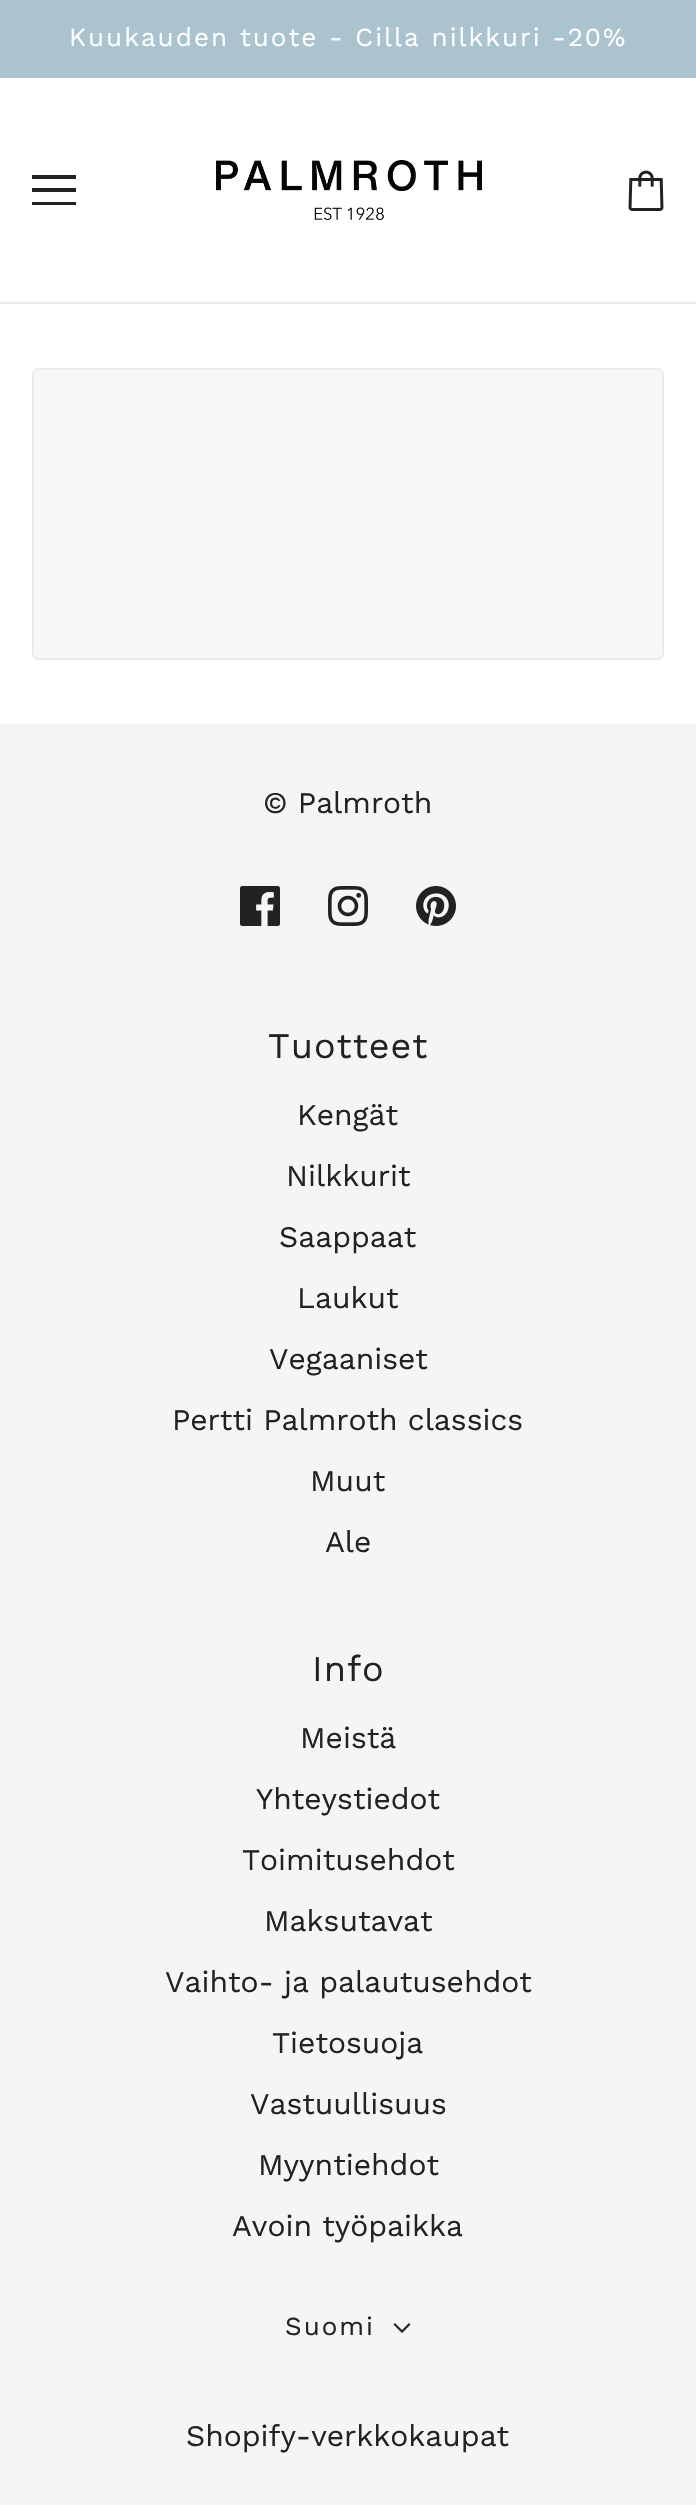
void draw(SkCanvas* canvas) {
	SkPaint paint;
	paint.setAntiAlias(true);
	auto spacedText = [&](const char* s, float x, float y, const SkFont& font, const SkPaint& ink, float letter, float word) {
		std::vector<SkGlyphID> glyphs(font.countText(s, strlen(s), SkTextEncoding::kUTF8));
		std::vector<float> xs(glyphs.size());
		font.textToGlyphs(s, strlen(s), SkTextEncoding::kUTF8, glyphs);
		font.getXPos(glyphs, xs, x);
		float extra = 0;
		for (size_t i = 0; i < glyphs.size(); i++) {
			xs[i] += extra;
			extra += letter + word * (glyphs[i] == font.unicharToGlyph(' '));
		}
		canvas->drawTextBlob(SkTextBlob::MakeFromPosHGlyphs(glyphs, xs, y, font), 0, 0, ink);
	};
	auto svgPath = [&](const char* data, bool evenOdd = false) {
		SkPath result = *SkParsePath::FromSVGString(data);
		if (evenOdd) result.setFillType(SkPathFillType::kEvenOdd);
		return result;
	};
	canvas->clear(0xffffffff);
	paint.setColor(0xffabc3ce);
	canvas->drawRect(SkRect::MakeXYWH(0, 0, 696, 78), paint);
	SkFont f1(fontMgr->matchFamilyStyle("Work Sans", SkFontStyle::Normal()), 26);
	f1.setSubpixel(true);
	paint.setColor(0xffffffff);
	spacedText("Kuukauden tuote - Cilla nilkkuri -20%", 69, 46, f1, paint, 2, 0);
	paint.setColor(0xffeaeaea);
	canvas->drawRect(SkRect::MakeXYWH(0, 302, 696, 2), paint);
	paint.setColor(0xff222222);
	canvas->drawPath(svgPath("M32 179V175H76V179ZM32 192V188H76V192ZM32 205V202H76V205Z"), paint);
	canvas->drawImageRect(SkImages::DeferredFromEncodedData(SkData::MakeFromFileName("img1.png")), SkRect::MakeXYWH(216, 160, 266, 60), SkSamplingOptions());
	canvas->drawImageRect(SkImages::DeferredFromEncodedData(SkData::MakeFromFileName("img2.png")), SkRect::MakeXYWH(628, 170, 36, 41), SkSamplingOptions());
	paint.setColor(0xfff7f7f7);
	canvas->drawRoundRect(SkRect::MakeXYWH(33, 369, 630, 290), 5, 5, paint);
	paint.setStroke(true);
	paint.setStrokeWidth(2);
	paint.setColor(0xffeaeaea);
	canvas->drawRoundRect(SkRect::MakeXYWH(33, 369, 630, 290), 5, 5, paint);
	paint.setStroke(false);
	paint.setColor(0xfff5f5f5);
	canvas->drawRect(SkRect::MakeXYWH(0, 724, 696, 1781), paint);
	SkFont f2(fontMgr->matchFamilyStyle("Work Sans", SkFontStyle::Normal()), 30);
	f2.setSubpixel(true);
	paint.setColor(0xff222222);
	canvas->drawString("© Palmroth", 263, 813, f2, paint);
	canvas->drawImageRect(SkImages::DeferredFromEncodedData(SkData::MakeFromFileName("img3.png")), SkRect::MakeXYWH(240, 886, 40, 40), SkSamplingOptions());
	canvas->drawImageRect(SkImages::DeferredFromEncodedData(SkData::MakeFromFileName("img4.png")), SkRect::MakeXYWH(328, 886, 40, 40), SkSamplingOptions());
	canvas->drawImageRect(SkImages::DeferredFromEncodedData(SkData::MakeFromFileName("img5.png")), SkRect::MakeXYWH(416, 886, 40, 40), SkSamplingOptions());
	SkFont f3(fontMgr->matchFamilyStyle("Work Sans", SkFontStyle::Normal()), 36);
	f3.setSubpixel(true);
	spacedText("Tuotteet", 268, 1058, f3, paint, 1, 0);
	canvas->drawString("Kengät", 297, 1125, f2, paint);
	canvas->drawString("Nilkkurit", 286, 1186, f2, paint);
	canvas->drawString("Saappaat", 279, 1247, f2, paint);
	canvas->drawString("Laukut", 297, 1308, f2, paint);
	canvas->drawString("Vegaaniset", 269, 1369, f2, paint);
	canvas->drawString("Pertti Palmroth classics", 172, 1430, f2, paint);
	canvas->drawString("Muut", 310, 1491, f2, paint);
	canvas->drawString("Ale", 325, 1552, f2, paint);
	spacedText("Info", 312, 1681, f3, paint, 1, 0);
	canvas->drawString("Meistä", 300, 1748, f2, paint);
	canvas->drawString("Yhteystiedot", 256, 1809, f2, paint);
	canvas->drawString("Toimitusehdot", 242, 1870, f2, paint);
	canvas->drawString("Maksutavat", 264, 1931, f2, paint);
	canvas->drawString("Vaihto- ja palautusehdot", 165, 1992, f2, paint);
	canvas->drawString("Tietosuoja", 272, 2053, f2, paint);
	canvas->drawString("Vastuullisuus", 250, 2114, f2, paint);
	canvas->drawString("Myyntiehdot", 258, 2175, f2, paint);
	canvas->drawString("Avoin työpaikka", 232, 2236, f2, paint);
	spacedText("Suomi", 285, 2335, f1, paint, 2, 0);
	canvas->drawPath(svgPath("M402 2330L409 2323L410.5 2324.5L402 2333L393.5 2324.5L395 2323Z"), paint);
	canvas->drawString("Shopify-verkkokaupat", 186, 2446, f2, paint);
}
